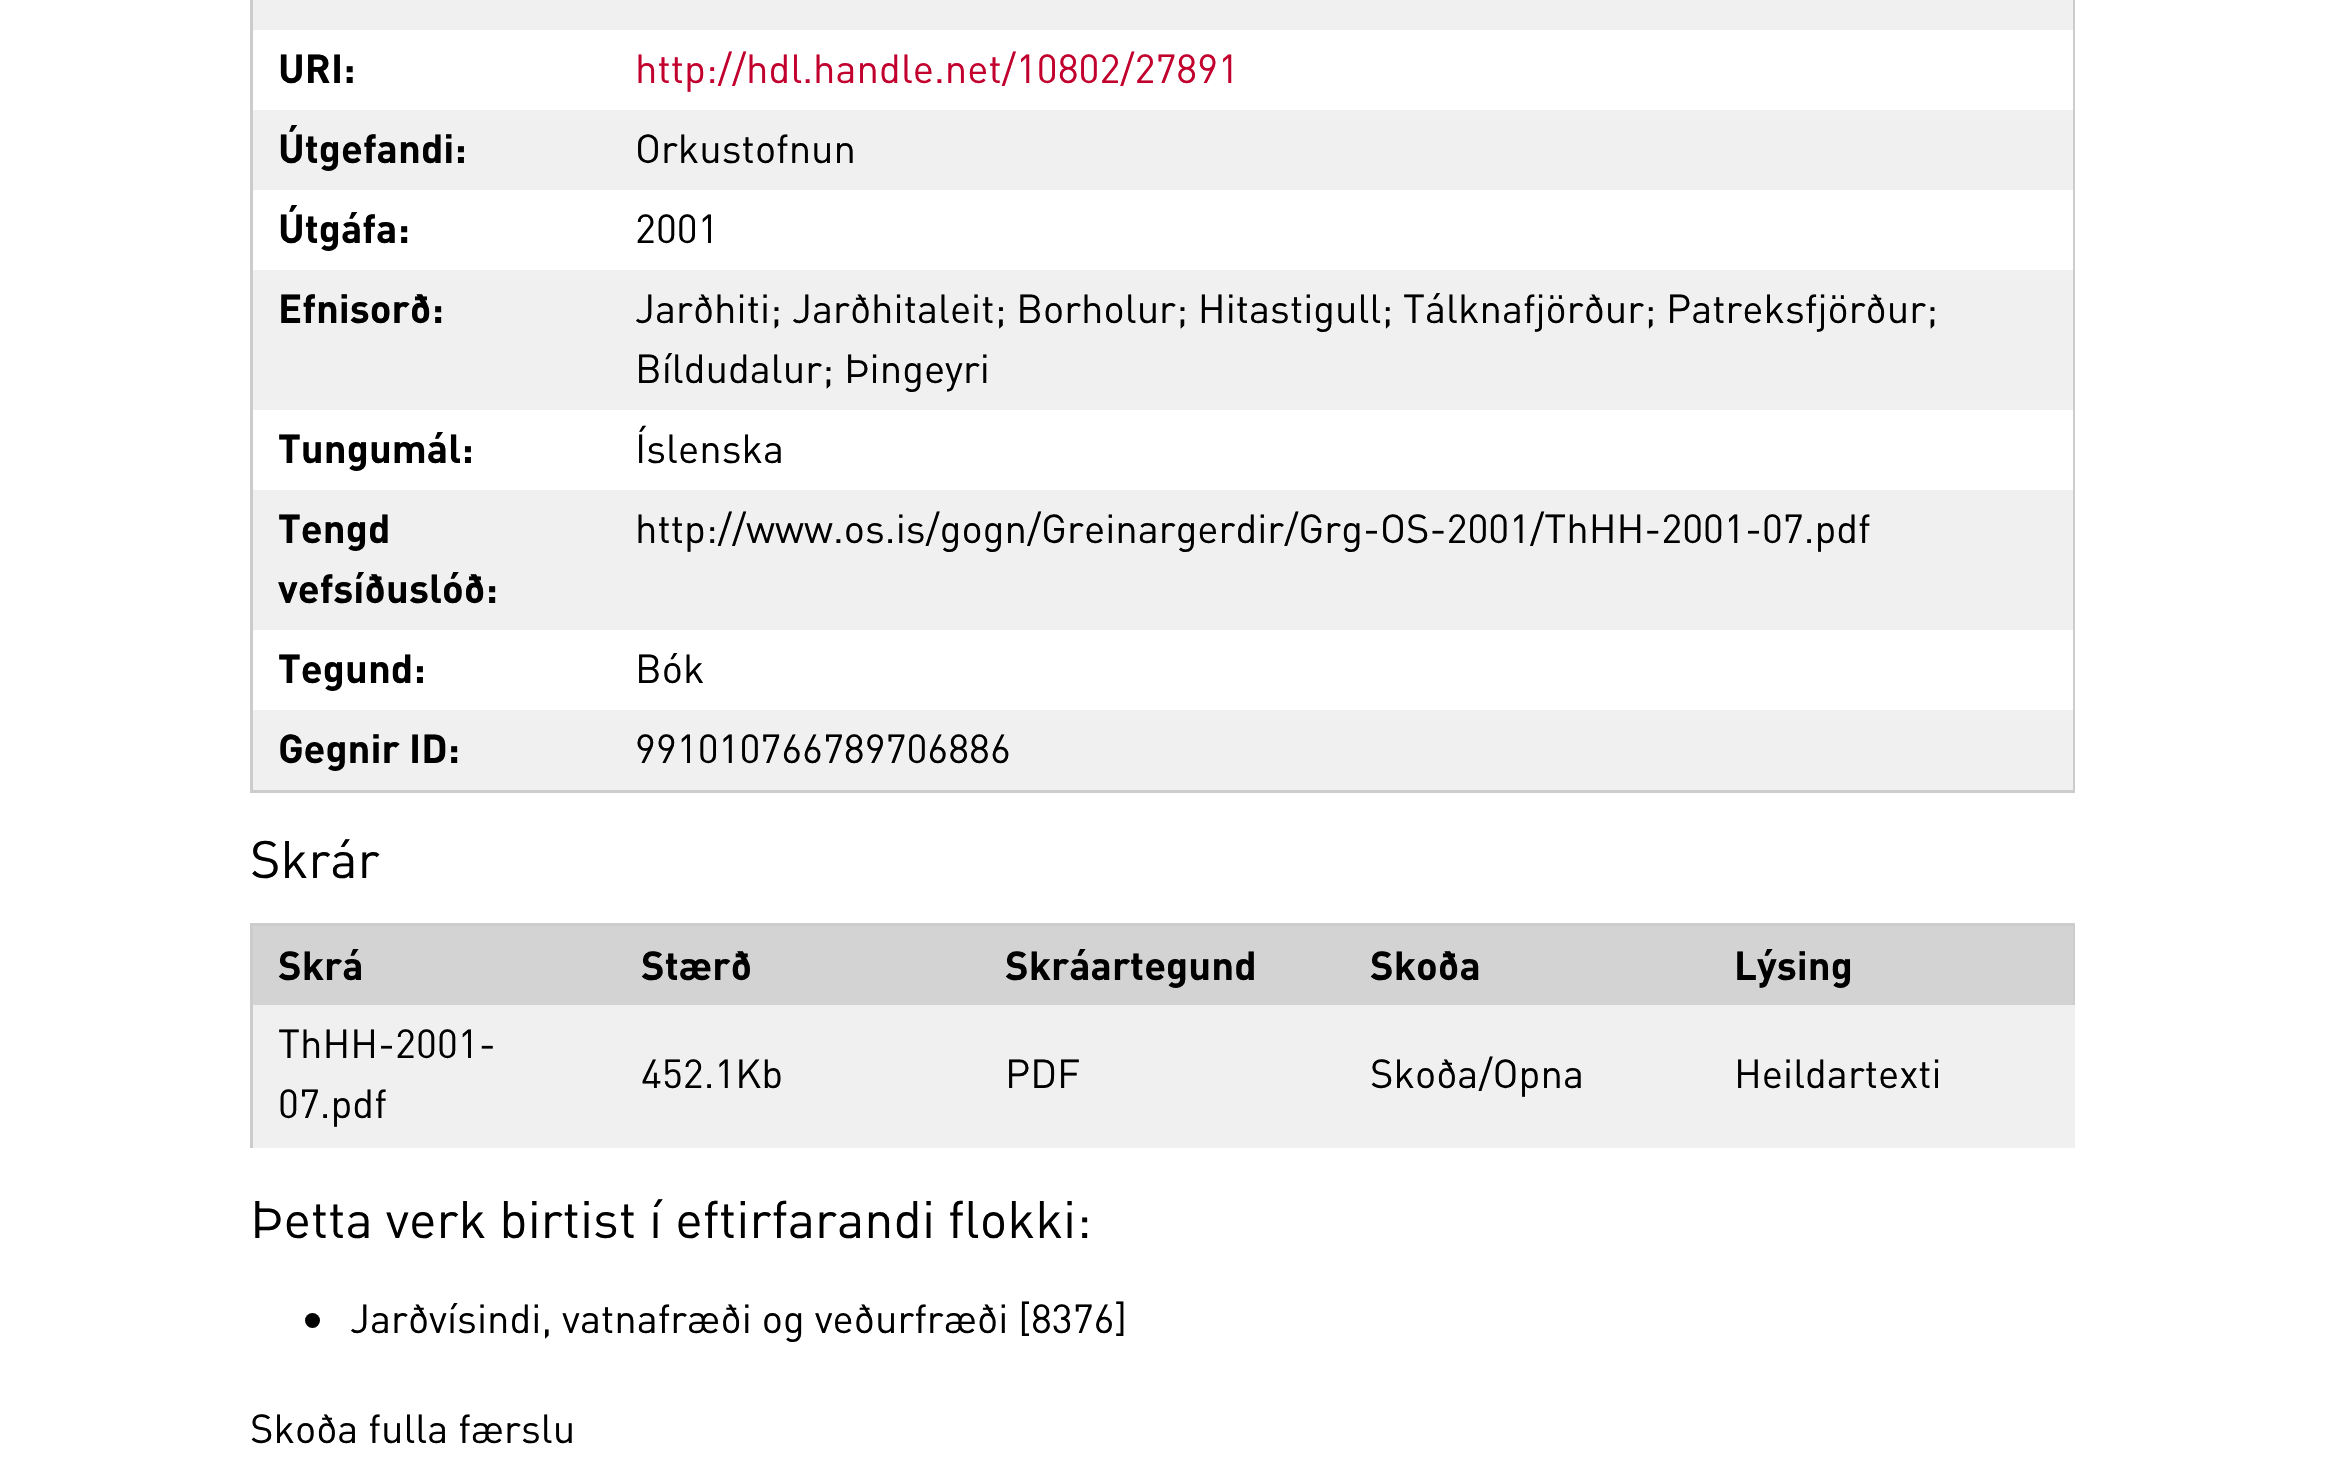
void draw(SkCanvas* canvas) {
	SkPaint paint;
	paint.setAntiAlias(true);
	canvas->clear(0xffffffff);
	paint.setColor(0xffcccccc);
	canvas->drawRect(SkRect::MakeXYWH(2073, 0, 2, 793), paint);
	canvas->drawRect(SkRect::MakeXYWH(250, 790, 1825, 3), paint);
	canvas->drawRect(SkRect::MakeXYWH(250, 0, 3, 793), paint);
	paint.setColor(0xfff0f0f0);
	canvas->drawRect(SkRect::MakeXYWH(253, 0, 1820, 30), paint);
	SkFont f1(fontMgr->matchFamilyStyle("DIN", SkFontStyle::Bold()), 40);
	f1.setSubpixel(true);
	paint.setColor(0xff000000);
	canvas->drawString("URI:", 278, 83, f1, paint);
	SkFont f2(fontMgr->matchFamilyStyle("DIN", SkFontStyle::Normal()), 40);
	f2.setSubpixel(true);
	paint.setColor(0xffc2002d);
	canvas->drawString("http://hdl.handle.net/10802/27891", 635, 83, f2, paint);
	paint.setColor(0xfff0f0f0);
	canvas->drawRect(SkRect::MakeXYWH(253, 110, 1820, 80), paint);
	paint.setColor(0xff000000);
	canvas->drawString("Útgefandi:", 278, 163, f1, paint);
	canvas->drawString("Orkustofnun", 635, 163, f2, paint);
	canvas->drawString("Útgáfa:", 278, 243, f1, paint);
	canvas->drawString("2001", 635, 243, f2, paint);
	paint.setColor(0xfff0f0f0);
	canvas->drawRect(SkRect::MakeXYWH(253, 270, 1820, 140), paint);
	paint.setColor(0xff000000);
	canvas->drawString("Efnisorð:", 278, 323, f1, paint);
	canvas->drawString("Jarðhiti; Jarðhitaleit; Borholur; Hitastigull; Tálknafjörður; Patreksfjörður;", 635, 323, f2, paint);
	canvas->drawString("Bíldudalur; Þingeyri", 635, 383, f2, paint);
	canvas->drawString("Tungumál:", 278, 463, f1, paint);
	canvas->drawString("Íslenska", 635, 463, f2, paint);
	paint.setColor(0xfff0f0f0);
	canvas->drawRect(SkRect::MakeXYWH(253, 490, 1820, 140), paint);
	paint.setColor(0xff000000);
	canvas->drawString("Tengd", 278, 543, f1, paint);
	canvas->drawString("vefsíðuslóð:", 278, 603, f1, paint);
	canvas->drawString("http://www.os.is/gogn/Greinargerdir/Grg-OS-2001/ThHH-2001-07.pdf", 635, 543, f2, paint);
	canvas->drawString("Tegund:", 278, 683, f1, paint);
	canvas->drawString("Bók", 635, 683, f2, paint);
	paint.setColor(0xfff0f0f0);
	canvas->drawRect(SkRect::MakeXYWH(253, 710, 1820, 80), paint);
	paint.setColor(0xff000000);
	canvas->drawString("Gegnir ID:", 278, 763, f1, paint);
	canvas->drawString("991010766789706886", 635, 763, f2, paint);
	SkFont f3(fontMgr->matchFamilyStyle("DIN", SkFontStyle::Normal()), 52);
	f3.setSubpixel(true);
	canvas->drawString("Skrár", 250, 878, f3, paint);
	paint.setColor(0xffcccccc);
	canvas->drawRect(SkRect::MakeXYWH(250, 923, 1825, 3), paint);
	canvas->drawRect(SkRect::MakeXYWH(2073, 923, 2, 82), paint);
	canvas->drawRect(SkRect::MakeXYWH(250, 923, 3, 225), paint);
	paint.setColor(0xffd3d3d3);
	canvas->drawRect(SkRect::MakeXYWH(253, 926, 1820, 79), paint);
	paint.setColor(0xff000000);
	canvas->drawString("Skrá", 278, 980, f1, paint);
	canvas->drawString("Stærð", 641, 980, f1, paint);
	canvas->drawString("Skráartegund", 1005, 980, f1, paint);
	canvas->drawString("Skoða", 1370, 980, f1, paint);
	canvas->drawString("Lýsing", 1734, 980, f1, paint);
	paint.setColor(0xfff0f0f0);
	canvas->drawRect(SkRect::MakeXYWH(253, 1005, 1822, 143), paint);
	paint.setColor(0xff000000);
	canvas->drawString("ThHH-2001-", 278, 1058, f2, paint);
	canvas->drawString("07.pdf", 278, 1118, f2, paint);
	canvas->drawString("452.1Kb", 641, 1088, f2, paint);
	canvas->drawString("PDF", 1005, 1088, f2, paint);
	canvas->drawString("Skoða/Opna", 1370, 1088, f2, paint);
	canvas->drawString("Heildartexti", 1734, 1088, f2, paint);
	canvas->drawString("Þetta verk birtist í eftirfarandi flokki:", 250, 1238, f3, paint);
	canvas->drawCircle(312.5, 1320.5, 7.5, paint);
	canvas->drawString("Jarðvísindi, vatnafræði og veðurfræði [8376]", 350, 1333, f2, paint);
	canvas->drawString("Skoða fulla færslu", 250, 1443, f2, paint);
}
